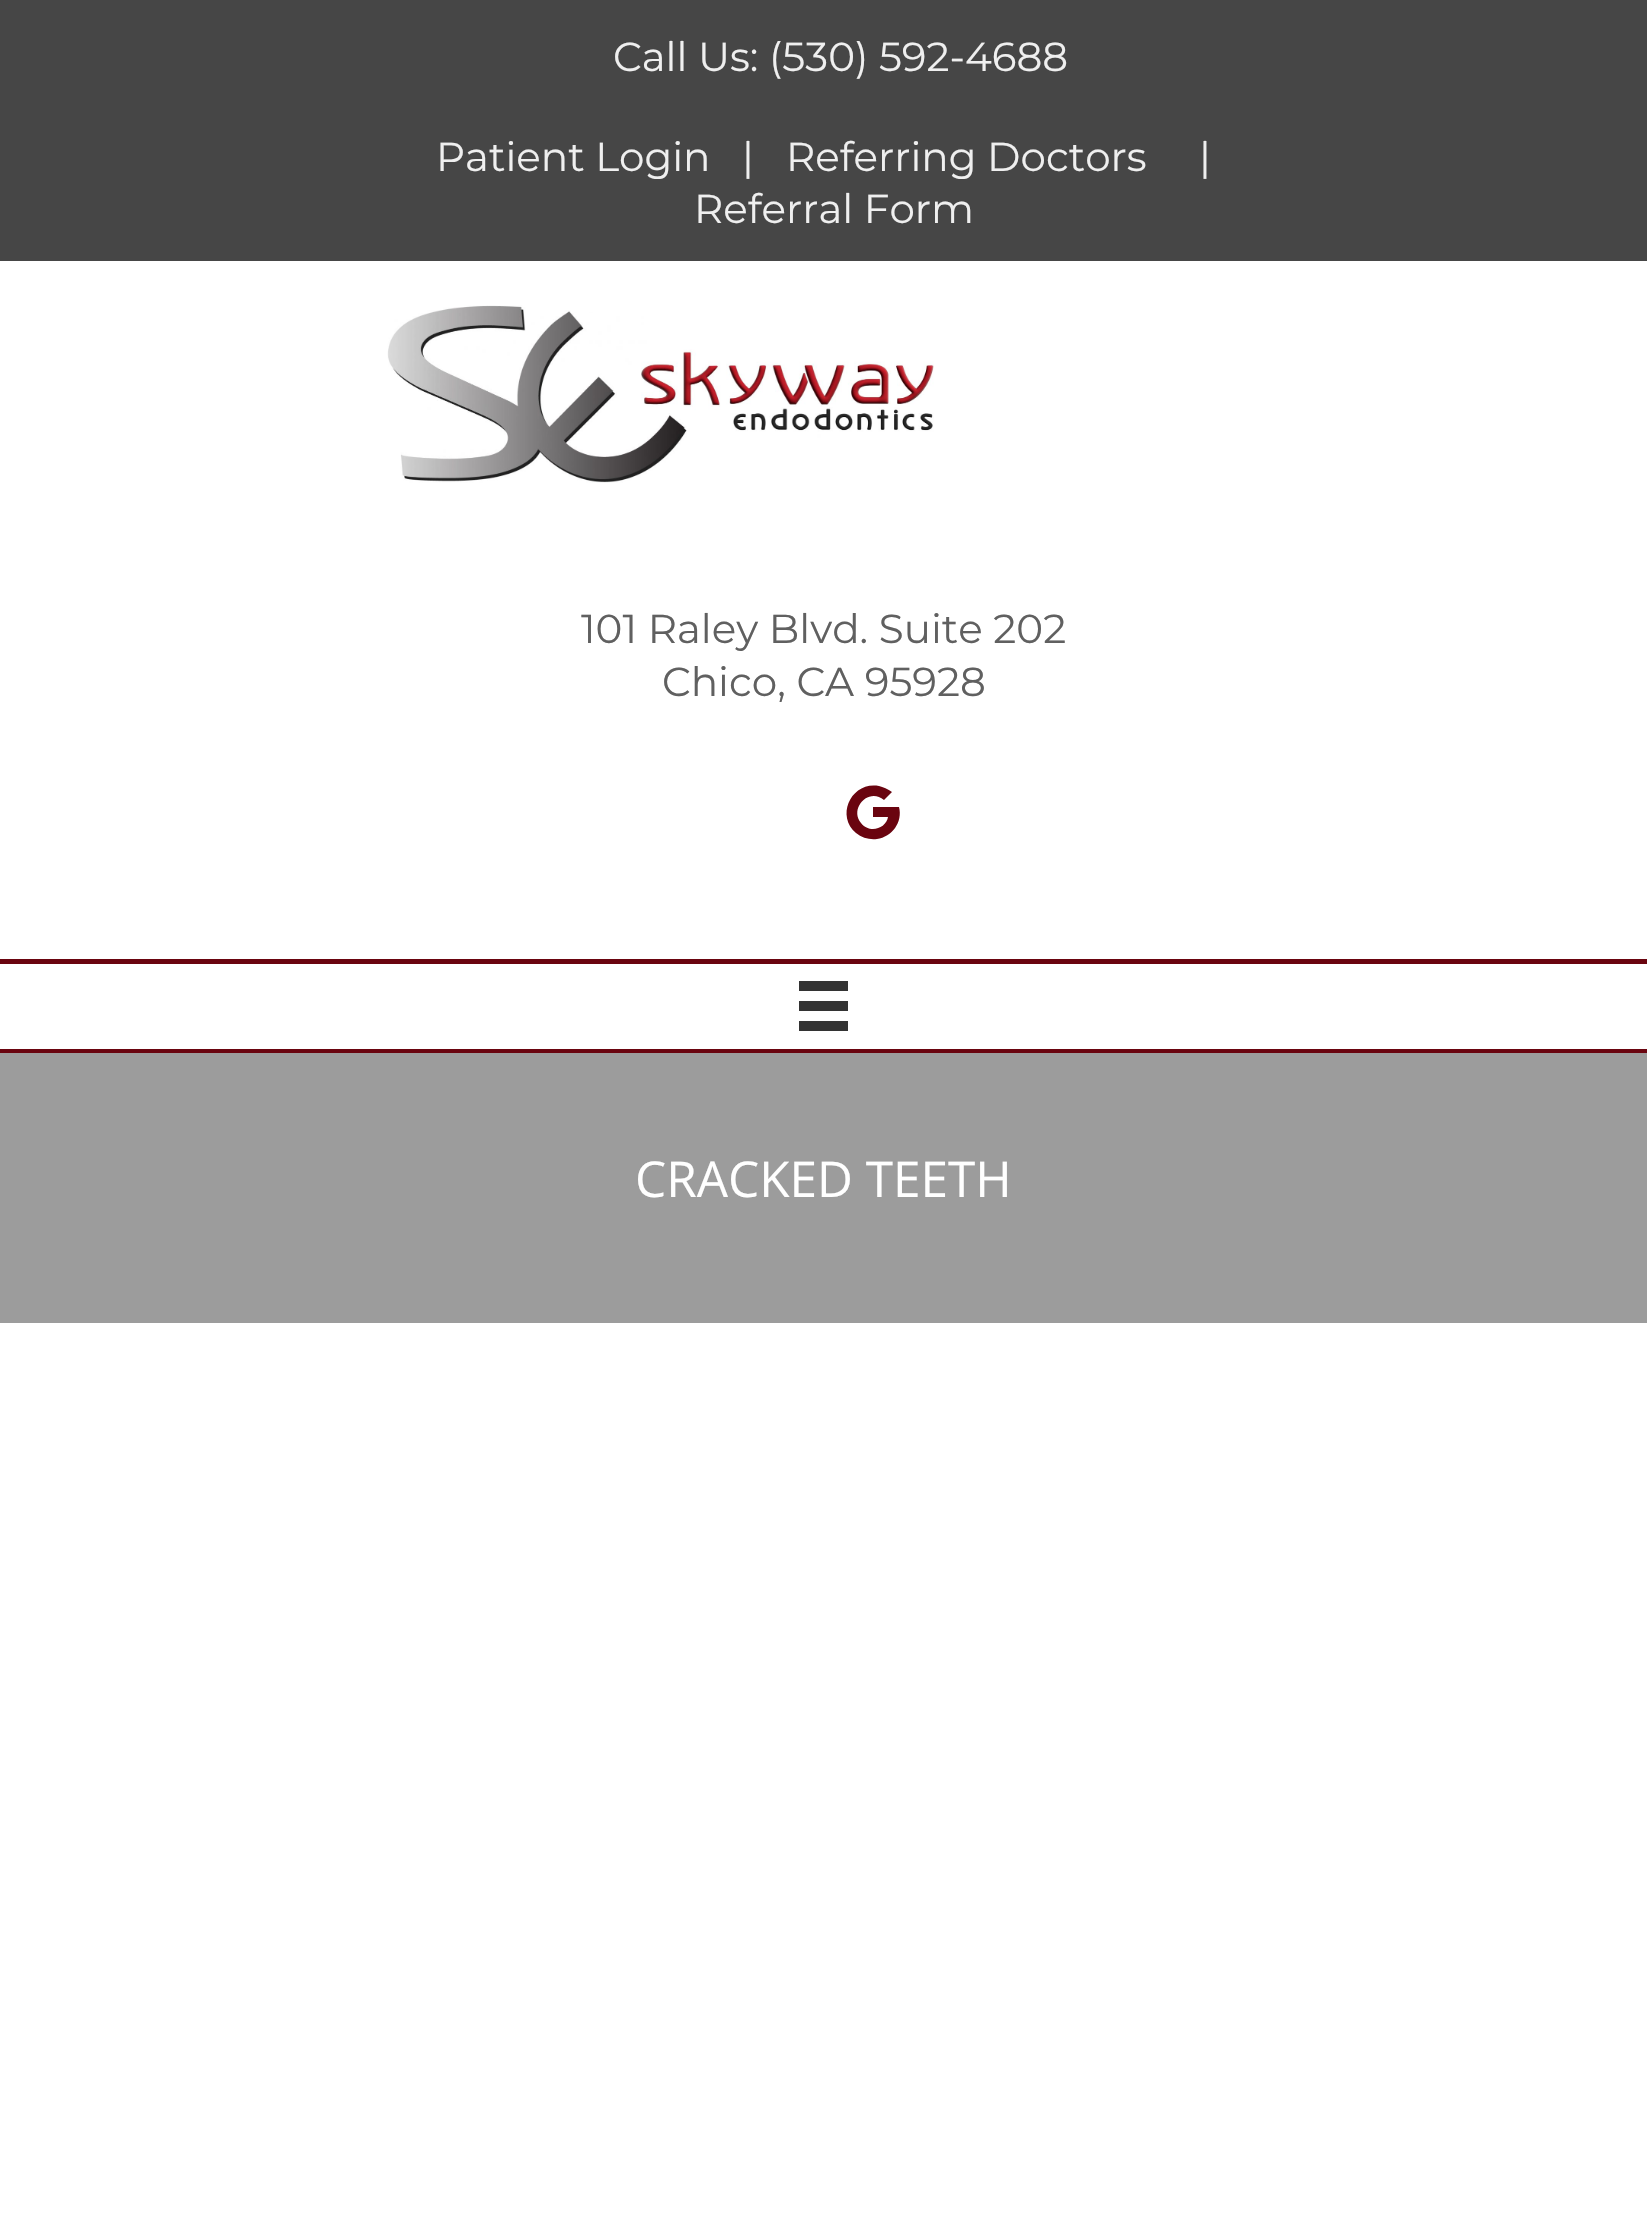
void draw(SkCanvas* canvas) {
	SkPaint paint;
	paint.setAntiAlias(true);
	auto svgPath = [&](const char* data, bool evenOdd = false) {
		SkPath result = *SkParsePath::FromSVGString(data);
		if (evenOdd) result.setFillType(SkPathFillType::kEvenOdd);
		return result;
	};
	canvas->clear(0xffffffff);
	paint.setColor(0xff464646);
	canvas->drawRect(SkRect::MakeXYWH(0, 0, 1647, 261), paint);
	SkFont f1(fontMgr->matchFamilyStyle("Montserrat", SkFontStyle::Normal()), 40.5);
	f1.setSubpixel(true);
	paint.setColor(0xffefefef);
	canvas->drawString("Call Us: (530) 592-4688", 613, 71, f1, paint);
	canvas->drawString("Patient Login", 436, 171, f1, paint);
	canvas->drawString("|", 742, 171, f1, paint);
	canvas->drawString("Referring Doctors", 786, 171, f1, paint);
	canvas->drawString("|", 1199, 171, f1, paint);
	canvas->drawString("Referral Form", 694, 223, f1, paint);
	canvas->drawImageRect(SkImages::DeferredFromEncodedData(SkData::MakeFromFileName("img1.png")), SkRect::MakeXYWH(387, 305, 547, 178), SkSamplingOptions());
	paint.setColor(0xff606060);
	canvas->drawString("101 Raley Blvd. Suite 202", 581, 643, f1, paint);
	canvas->drawString("Chico, CA 95928", 662, 696, f1, paint);
	paint.setColor(0xff6a040f);
	canvas->drawPath(svgPath("M899 807H873V817H888C887 824 880 829 873 829C869 829 864 827 861 823C849 808 869 787 884 800L892 792C888 789 883 787 879 786C852 781 835 815 856 833C862 838 870 840 877 839C892 837 903 822 899 807Z"), paint);
	canvas->drawRect(SkRect::MakeXYWH(0, 959, 1647, 5), paint);
	canvas->drawRect(SkRect::MakeXYWH(0, 1049, 1647, 4), paint);
	paint.setColor(0xff333333);
	canvas->drawRect(SkRect::MakeXYWH(799, 981, 49, 10), paint);
	canvas->drawRect(SkRect::MakeXYWH(799, 1001, 49, 10), paint);
	canvas->drawRect(SkRect::MakeXYWH(799, 1021, 49, 10), paint);
	paint.setColor(0xff9c9c9c);
	canvas->drawRect(SkRect::MakeXYWH(0, 1053, 1647, 270), paint);
	SkFont f2(fontMgr->matchFamilyStyle("Open Sans", SkFontStyle::Normal()), 49.5);
	f2.setSubpixel(true);
	paint.setColor(0xffffffff);
	canvas->drawString("CRACKED TEETH", 635, 1197, f2, paint);
}
